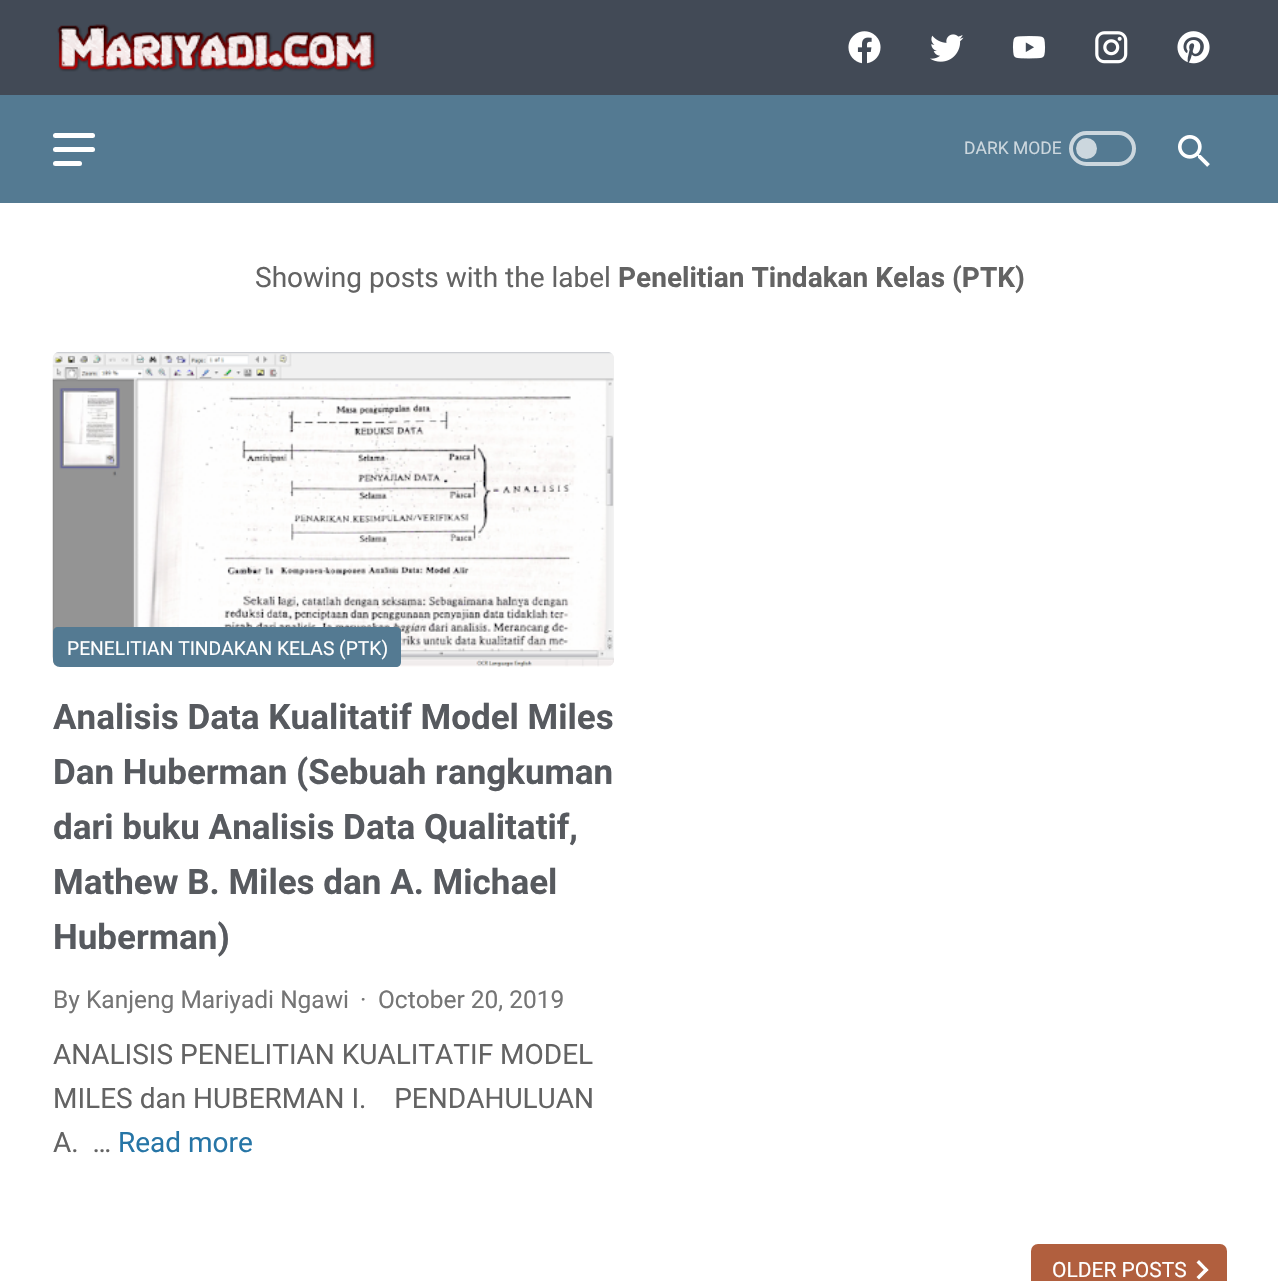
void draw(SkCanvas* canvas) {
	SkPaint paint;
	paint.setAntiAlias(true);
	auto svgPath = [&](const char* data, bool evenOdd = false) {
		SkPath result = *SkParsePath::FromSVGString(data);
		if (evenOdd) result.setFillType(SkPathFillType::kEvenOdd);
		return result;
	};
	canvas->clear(0xff547a92);
	paint.setColor(0xff424a56);
	canvas->drawRect(SkRect::MakeXYWH(0, 0, 1278, 95), paint);
	canvas->drawImageRect(SkImages::DeferredFromEncodedData(SkData::MakeFromFileName("img1.png")), SkRect::MakeXYWH(57, 24, 320, 48), SkSamplingOptions());
	canvas->drawImageRect(SkImages::DeferredFromEncodedData(SkData::MakeFromFileName("img2.png")), SkRect::MakeXYWH(848, 31, 33, 33), SkSamplingOptions());
	canvas->drawImageRect(SkImages::DeferredFromEncodedData(SkData::MakeFromFileName("img3.png")), SkRect::MakeXYWH(930, 34, 34, 28), SkSamplingOptions());
	canvas->drawImageRect(SkImages::DeferredFromEncodedData(SkData::MakeFromFileName("img4.png")), SkRect::MakeXYWH(1012, 36, 34, 23), SkSamplingOptions());
	canvas->drawImageRect(SkImages::DeferredFromEncodedData(SkData::MakeFromFileName("img5.png")), SkRect::MakeXYWH(1095, 31, 33, 33), SkSamplingOptions());
	canvas->drawImageRect(SkImages::DeferredFromEncodedData(SkData::MakeFromFileName("img6.png")), SkRect::MakeXYWH(1177, 31, 33, 33), SkSamplingOptions());
	paint.setColor(0xffffffff);
	canvas->drawRoundRect(SkRect::MakeXYWH(53, 133, 42, 5), 2.5, 2.5, paint);
	canvas->drawRoundRect(SkRect::MakeXYWH(53, 147, 42, 5), 2.5, 2.5, paint);
	canvas->drawRoundRect(SkRect::MakeXYWH(53, 161, 29, 5), 2.5, 2.5, paint);
	SkFont f1(fontMgr->matchFamilyStyle("Roboto", SkFontStyle::Normal()), 17.5);
	f1.setSubpixel(true);
	paint.setColor(0xffccd7de);
	canvas->drawString("DARK MODE", 964, 154, f1, paint);
	paint.setStroke(true);
	paint.setStrokeWidth(4);
	canvas->drawRoundRect(SkRect::MakeXYWH(1071, 133, 63, 31), 15.5, 15.5, paint);
	paint.setStroke(false);
	canvas->drawCircle(1086.5, 148.5, 10.5, paint);
	canvas->drawImageRect(SkImages::DeferredFromEncodedData(SkData::MakeFromFileName("img7.png")), SkRect::MakeXYWH(1178, 135, 32, 32), SkSamplingOptions());
	paint.setColor(0xffffffff);
	canvas->drawRect(SkRect::MakeXYWH(0, 203, 1278, 1078), paint);
	SkFont f2(fontMgr->matchFamilyStyle("Roboto", SkFontStyle::Normal()), 28);
	f2.setSubpixel(true);
	paint.setColor(0xff636363);
	canvas->drawString("Showing posts with the label", 255, 287, f2, paint);
	SkFont f3(fontMgr->matchFamilyStyle("Roboto", SkFontStyle::Bold()), 28);
	f3.setSubpixel(true);
	canvas->drawString("Penelitian Tindakan Kelas (PTK)", 618, 287, f3, paint);
	canvas->drawImageRect(SkImages::DeferredFromEncodedData(SkData::MakeFromFileName("img8.png")), SkRect::MakeXYWH(52, 352, 562, 315), SkSamplingOptions());
	paint.setColor(0xff547a92);
	canvas->drawPath(svgPath("M58 627H396C399 627 401 629 401 632V662C401 665 399 667 396 667H60C56 667 53 664 53 660V632C53 629 55 627 58 627Z"), paint);
	SkFont f4(fontMgr->matchFamilyStyle("Roboto", SkFontStyle::Normal()), 19.25);
	f4.setSubpixel(true);
	paint.setColor(0xffffffff);
	canvas->drawString("PENELITIAN TINDAKAN KELAS (PTK)", 67, 655, f4, paint);
	SkFont f5(fontMgr->matchFamilyStyle("Roboto", SkFontStyle::Bold()), 35);
	f5.setSubpixel(true);
	paint.setColor(0xff575a5f);
	canvas->drawString("Analisis Data Kualitatif Model Miles", 53, 729, f5, paint);
	canvas->drawString("Dan Huberman (Sebuah rangkuman", 53, 784, f5, paint);
	canvas->drawString("dari buku Analisis Data Qualitatif,", 53, 839, f5, paint);
	canvas->drawString("Mathew B. Miles dan A. Michael", 53, 894, f5, paint);
	canvas->drawString("Huberman)", 53, 949, f5, paint);
	SkFont f6(fontMgr->matchFamilyStyle("Roboto", SkFontStyle::Normal()), 24.5);
	f6.setSubpixel(true);
	paint.setColor(0xff757575);
	canvas->drawString("By Kanjeng Mariyadi Ngawi", 53, 1008, f6, paint);
	canvas->drawString("·", 360, 1008, f6, paint);
	canvas->drawString("October 20, 2019", 378, 1008, f6, paint);
	paint.setColor(0xff636363);
	canvas->drawString("ANALISIS PENELITIAN KUALITATIF MODEL", 53, 1064, f2, paint);
	canvas->drawString("MILES dan HUBERMAN I.    PENDAHULUAN", 53, 1108, f2, paint);
	canvas->drawString("A.  …", 53, 1152, f2, paint);
	paint.setColor(0xff2675a6);
	canvas->drawString("Read more", 118, 1152, f2, paint);
	paint.setColor(0xffb15f3e);
	canvas->drawRoundRect(SkRect::MakeXYWH(1031, 1244, 196, 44), 7, 7, paint);
	SkFont f7(fontMgr->matchFamilyStyle("Roboto", SkFontStyle::Normal()), 21);
	f7.setSubpixel(true);
	paint.setColor(0xffffffff);
	canvas->drawString("OLDER POSTS", 1052, 1277, f7, paint);
	canvas->drawPath(svgPath("M1196.5 1262.5L1199 1260L1208.5 1270L1206 1272Z"), paint);
	canvas->drawPath(svgPath("M1196.5 1277L1206 1267.5L1208.5 1270L1199 1279.5Z"), paint);
}
